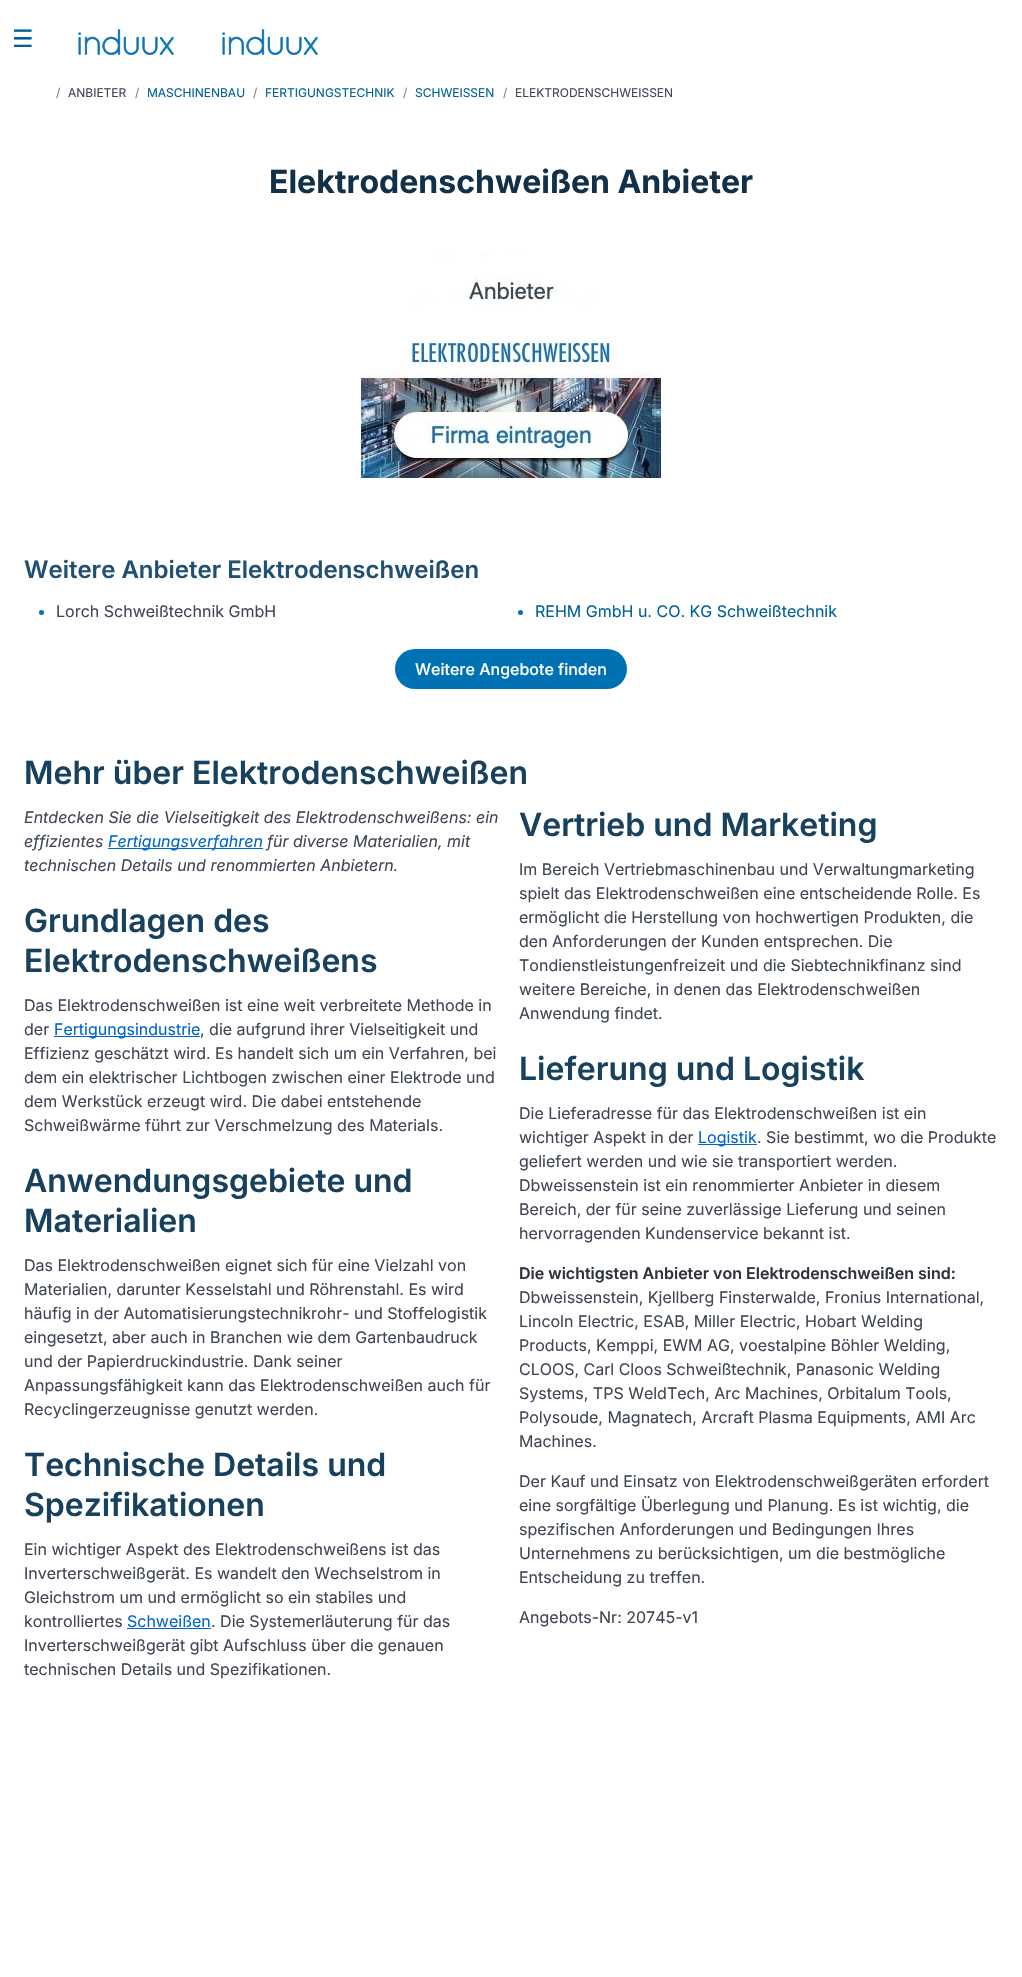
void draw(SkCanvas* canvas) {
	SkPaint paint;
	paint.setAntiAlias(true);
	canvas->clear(0xffffffff);
	SkFont f1(fontMgr->matchFamilyStyle("DejaVu Sans", SkFontStyle::Normal()), 24);
	f1.setSubpixel(true);
	paint.setColor(0xff006199);
	canvas->drawString("☰", 12, 47, f1, paint);
	canvas->drawImageRect(SkImages::DeferredFromEncodedData(SkData::MakeFromFileName("img1.png")), SkRect::MakeXYWH(78, 29, 96, 26), SkSamplingOptions());
	canvas->drawImageRect(SkImages::DeferredFromEncodedData(SkData::MakeFromFileName("img1.png")), SkRect::MakeXYWH(222, 29, 96, 26), SkSamplingOptions());
	SkFont f2(fontMgr->matchFamilyStyle("Inter", SkFontStyle::Normal()), 12);
	f2.setSubpixel(true);
	paint.setColor(0xff808080);
	canvas->drawString("/", 56, 97, f2, paint);
	paint.setColor(0xff404654);
	canvas->drawString("ANBIETER", 68, 97, f2, paint);
	paint.setColor(0xff808080);
	canvas->drawString("/", 135, 97, f2, paint);
	paint.setColor(0xff006199);
	canvas->drawString("MASCHINENBAU", 147, 97, f2, paint);
	paint.setColor(0xff808080);
	canvas->drawString("/", 253, 97, f2, paint);
	paint.setColor(0xff006199);
	canvas->drawString("FERTIGUNGSTECHNIK", 265, 97, f2, paint);
	paint.setColor(0xff808080);
	canvas->drawString("/", 403, 97, f2, paint);
	paint.setColor(0xff006199);
	canvas->drawString("SCHWEISSEN", 415, 97, f2, paint);
	paint.setColor(0xff808080);
	canvas->drawString("/", 503, 97, f2, paint);
	paint.setColor(0xff404654);
	canvas->drawString("ELEKTRODENSCHWEISSEN", 515, 97, f2, paint);
	SkFont f3(fontMgr->matchFamilyStyle("Inter", SkFontStyle::Bold()), 32);
	f3.setSubpixel(true);
	paint.setColor(0xff123047);
	canvas->drawString("Elektrodenschweißen Anbieter", 269, 193, f3, paint);
	canvas->drawImageRect(SkImages::DeferredFromEncodedData(SkData::MakeFromFileName("img2.png")), SkRect::MakeXYWH(361, 252, 300, 226), SkSamplingOptions());
	SkFont f4(fontMgr->matchFamilyStyle("Inter", SkFontStyle(600, SkFontStyle::kNormal_Width, SkFontStyle::kUpright_Slant)), 24);
	f4.setSubpixel(true);
	paint.setColor(0xff205172);
	canvas->drawString("Weitere Anbieter Elektrodenschweißen", 24, 578, f4, paint);
	paint.setColor(0xff0071b2);
	canvas->drawCircle(41.5, 612.5, 2.5, paint);
	SkFont f5(fontMgr->matchFamilyStyle("Inter", SkFontStyle::Normal()), 16);
	f5.setSubpixel(true);
	paint.setColor(0xff404654);
	canvas->drawString("Lorch Schweißtechnik GmbH", 56, 617, f5, paint);
	paint.setColor(0xff0071b2);
	canvas->drawCircle(520.5, 612.5, 2.5, paint);
	paint.setColor(0xff006199);
	canvas->drawString("REHM GmbH u. CO. KG Schweißtechnik", 535, 617, f5, paint);
	paint.setColor(0xff0071b3);
	canvas->drawRoundRect(SkRect::MakeXYWH(395, 649, 232, 40), 20, 20, paint);
	SkFont f6(fontMgr->matchFamilyStyle("Inter", SkFontStyle(500, SkFontStyle::kNormal_Width, SkFontStyle::kUpright_Slant)), 16);
	f6.setSubpixel(true);
	paint.setColor(0xffffffff);
	canvas->drawString("Weitere Angebote finden", 415, 675, f6, paint);
	SkFont f7(fontMgr->matchFamilyStyle("Inter", SkFontStyle(600, SkFontStyle::kNormal_Width, SkFontStyle::kUpright_Slant)), 32);
	f7.setSubpixel(true);
	paint.setColor(0xff18415d);
	canvas->drawString("Mehr über Elektrodenschweißen", 24, 784, f7, paint);
	SkFont f8(fontMgr->matchFamilyStyle("Inter", SkFontStyle::Italic()), 16);
	f8.setSubpixel(true);
	paint.setColor(0xff404654);
	canvas->drawString("Entdecken Sie die Vielseitigkeit des Elektrodenschweißens: ein", 24, 823, f8, paint);
	canvas->drawString("effizientes", 24, 847, f8, paint);
	paint.setColor(0xff0066cc);
	canvas->drawRect(SkRect::MakeXYWH(108, 848, 155, 1), paint);
	canvas->drawString("Fertigungsverfahren", 108, 847, f8, paint);
	paint.setColor(0xff404654);
	canvas->drawString("für diverse Materialien, mit", 267, 847, f8, paint);
	canvas->drawString("technischen Details und renommierten Anbietern.", 24, 871, f8, paint);
	paint.setColor(0xff18415d);
	canvas->drawString("Vertrieb und Marketing", 519, 836, f7, paint);
	canvas->drawString("Grundlagen des", 24, 932, f7, paint);
	canvas->drawString("Elektrodenschweißens", 24, 972, f7, paint);
	paint.setColor(0xff404654);
	canvas->drawString("Im Bereich Vertriebmaschinenbau und Verwaltungmarketing", 519, 875, f5, paint);
	canvas->drawString("spielt das Elektrodenschweißen eine entscheidende Rolle. Es", 519, 899, f5, paint);
	canvas->drawString("ermöglicht die Herstellung von hochwertigen Produkten, die", 519, 923, f5, paint);
	canvas->drawString("den Anforderungen der Kunden entsprechen. Die", 519, 947, f5, paint);
	canvas->drawString("Tondienstleistungenfreizeit und die Siebtechnikfinanz sind", 519, 971, f5, paint);
	canvas->drawString("weitere Bereiche, in denen das Elektrodenschweißen", 519, 995, f5, paint);
	canvas->drawString("Anwendung findet.", 519, 1019, f5, paint);
	canvas->drawString("Das Elektrodenschweißen ist eine weit verbreitete Methode in", 24, 1011, f5, paint);
	canvas->drawString("der", 24, 1035, f5, paint);
	paint.setColor(0xff0066cc);
	canvas->drawRect(SkRect::MakeXYWH(54, 1036, 146, 1), paint);
	canvas->drawString("Fertigungsindustrie", 54, 1035, f5, paint);
	paint.setColor(0xff404654);
	canvas->drawString(", die aufgrund ihrer Vielseitigkeit und", 200, 1035, f5, paint);
	canvas->drawString("Effizienz geschätzt wird. Es handelt sich um ein Verfahren, bei", 24, 1059, f5, paint);
	canvas->drawString("dem ein elektrischer Lichtbogen zwischen einer Elektrode und", 24, 1083, f5, paint);
	canvas->drawString("dem Werkstück erzeugt wird. Die dabei entstehende", 24, 1107, f5, paint);
	canvas->drawString("Schweißwärme führt zur Verschmelzung des Materials.", 24, 1131, f5, paint);
	paint.setColor(0xff18415d);
	canvas->drawString("Lieferung und Logistik", 519, 1080, f7, paint);
	canvas->drawString("Anwendungsgebiete und", 24, 1192, f7, paint);
	canvas->drawString("Materialien", 24, 1232, f7, paint);
	paint.setColor(0xff404654);
	canvas->drawString("Die Lieferadresse für das Elektrodenschweißen ist ein", 519, 1119, f5, paint);
	canvas->drawString("wichtiger Aspekt in der", 519, 1143, f5, paint);
	paint.setColor(0xff0066cc);
	canvas->drawRect(SkRect::MakeXYWH(698, 1144, 59, 1), paint);
	canvas->drawString("Logistik", 698, 1143, f5, paint);
	paint.setColor(0xff404654);
	canvas->drawString(". Sie bestimmt, wo die Produkte", 757, 1143, f5, paint);
	canvas->drawString("geliefert werden und wie sie transportiert werden.", 519, 1167, f5, paint);
	canvas->drawString("Dbweissenstein ist ein renommierter Anbieter in diesem", 519, 1191, f5, paint);
	canvas->drawString("Bereich, der für seine zuverlässige Lieferung und seinen", 519, 1215, f5, paint);
	canvas->drawString("hervorragenden Kundenservice bekannt ist.", 519, 1239, f5, paint);
	canvas->drawString("Das Elektrodenschweißen eignet sich für eine Vielzahl von", 24, 1271, f5, paint);
	canvas->drawString("Materialien, darunter Kesselstahl und Röhrenstahl. Es wird", 24, 1295, f5, paint);
	canvas->drawString("häufig in der Automatisierungstechnikrohr- und Stoffelogistik", 24, 1319, f5, paint);
	canvas->drawString("eingesetzt, aber auch in Branchen wie dem Gartenbaudruck", 24, 1343, f5, paint);
	canvas->drawString("und der Papierdruckindustrie. Dank seiner", 24, 1367, f5, paint);
	canvas->drawString("Anpassungsfähigkeit kann das Elektrodenschweißen auch für", 24, 1391, f5, paint);
	canvas->drawString("Recyclingerzeugnisse genutzt werden.", 24, 1415, f5, paint);
	SkFont f9(fontMgr->matchFamilyStyle("Inter", SkFontStyle(600, SkFontStyle::kNormal_Width, SkFontStyle::kUpright_Slant)), 16);
	f9.setSubpixel(true);
	paint.setColor(0xff2e333d);
	canvas->drawString("Die wichtigsten Anbieter von Elektrodenschweißen sind:", 519, 1279, f9, paint);
	paint.setColor(0xff404654);
	canvas->drawString("Dbweissenstein, Kjellberg Finsterwalde, Fronius International,", 519, 1303, f5, paint);
	canvas->drawString("Lincoln Electric, ESAB, Miller Electric, Hobart Welding", 519, 1327, f5, paint);
	canvas->drawString("Products, Kemppi, EWM AG, voestalpine Böhler Welding,", 519, 1351, f5, paint);
	canvas->drawString("CLOOS, Carl Cloos Schweißtechnik, Panasonic Welding", 519, 1375, f5, paint);
	canvas->drawString("Systems, TPS WeldTech, Arc Machines, Orbitalum Tools,", 519, 1399, f5, paint);
	canvas->drawString("Polysoude, Magnatech, Arcraft Plasma Equipments, AMI Arc", 519, 1423, f5, paint);
	canvas->drawString("Machines.", 519, 1447, f5, paint);
	paint.setColor(0xff18415d);
	canvas->drawString("Technische Details und", 24, 1476, f7, paint);
	canvas->drawString("Spezifikationen", 24, 1516, f7, paint);
	paint.setColor(0xff404654);
	canvas->drawString("Der Kauf und Einsatz von Elektrodenschweißgeräten erfordert", 519, 1487, f5, paint);
	canvas->drawString("eine sorgfältige Überlegung und Planung. Es ist wichtig, die", 519, 1511, f5, paint);
	canvas->drawString("spezifischen Anforderungen und Bedingungen Ihres", 519, 1535, f5, paint);
	canvas->drawString("Unternehmens zu berücksichtigen, um die bestmögliche", 519, 1559, f5, paint);
	canvas->drawString("Entscheidung zu treffen.", 519, 1583, f5, paint);
	canvas->drawString("Ein wichtiger Aspekt des Elektrodenschweißens ist das", 24, 1555, f5, paint);
	canvas->drawString("Inverterschweißgerät. Es wandelt den Wechselstrom in", 24, 1579, f5, paint);
	canvas->drawString("Gleichstrom um und ermöglicht so ein stabiles und", 24, 1603, f5, paint);
	canvas->drawString("kontrolliertes", 24, 1627, f5, paint);
	paint.setColor(0xff0066cc);
	canvas->drawString("Schweißen", 127, 1627, f5, paint);
	canvas->drawRect(SkRect::MakeXYWH(127, 1628, 84, 1), paint);
	paint.setColor(0xff404654);
	canvas->drawString(". Die Systemerläuterung für das", 211, 1627, f5, paint);
	canvas->drawString("Inverterschweißgerät gibt Aufschluss über die genauen", 24, 1651, f5, paint);
	canvas->drawString("technischen Details und Spezifikationen.", 24, 1675, f5, paint);
	canvas->drawString("Angebots-Nr: 20745-v1", 519, 1623, f5, paint);
}
